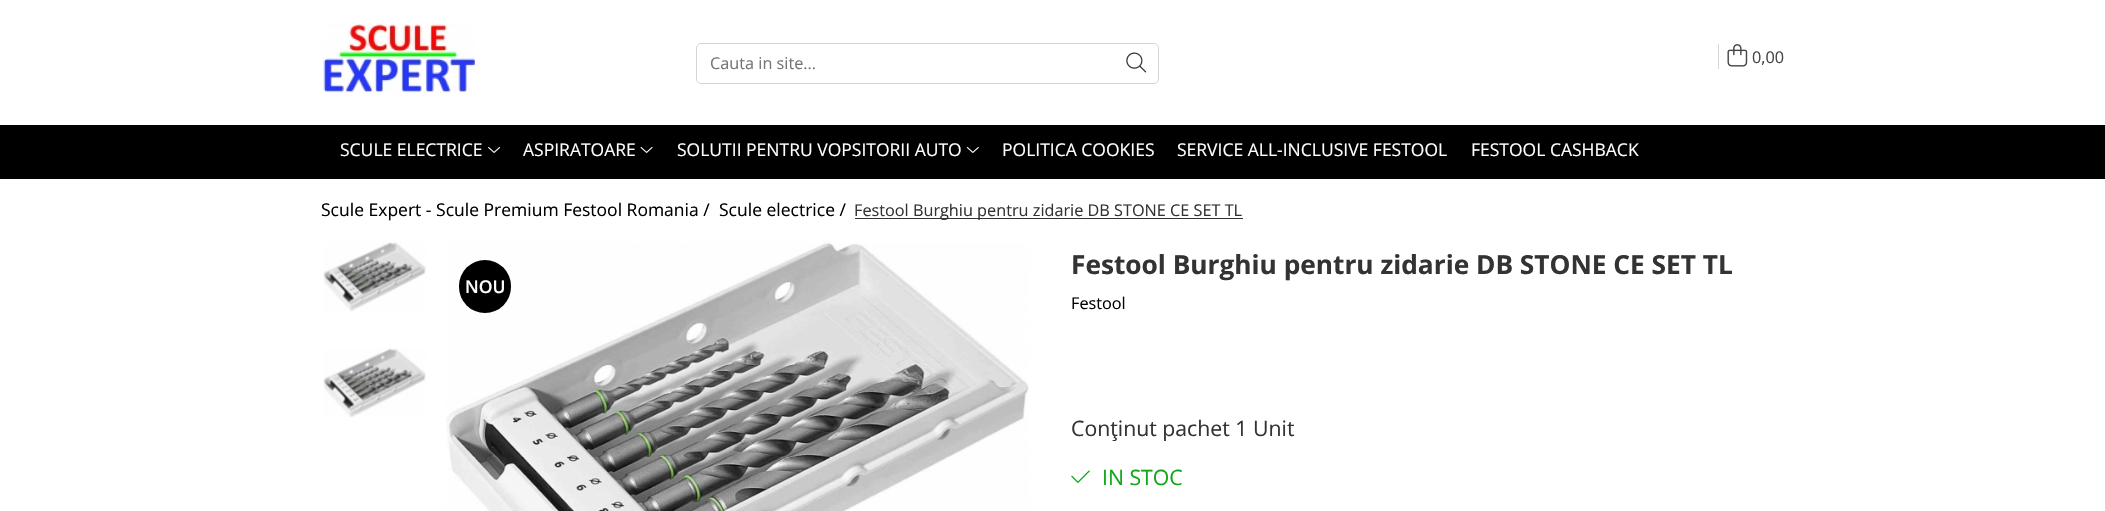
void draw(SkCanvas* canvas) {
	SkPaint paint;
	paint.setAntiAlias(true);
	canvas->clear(0xffffffff);
	canvas->drawImageRect(SkImages::DeferredFromEncodedData(SkData::MakeFromFileName("img1.png")), SkRect::MakeXYWH(322, 23, 153, 70), SkSamplingOptions());
	paint.setStroke(true);
	paint.setStrokeWidth(1);
	paint.setColor(0xffd5d5d5);
	canvas->drawRoundRect(SkRect::MakeXYWH(696.5, 43.5, 462, 40), 4.5, 4.5, paint);
	SkFont f1(fontMgr->matchFamilyStyle("Open Sans", SkFontStyle::Normal()), 16.25);
	f1.setSubpixel(true);
	paint.setStroke(false);
	paint.setColor(0xff757575);
	canvas->drawString("Cauta in site...", 710, 69, f1, paint);
	canvas->drawImageRect(SkImages::DeferredFromEncodedData(SkData::MakeFromFileName("img2.png")), SkRect::MakeXYWH(1126, 52, 21, 21), SkSamplingOptions());
	paint.setColor(0xffd5d5d5);
	canvas->drawRect(SkRect::MakeXYWH(1718, 44, 1, 25), paint);
	canvas->drawImageRect(SkImages::DeferredFromEncodedData(SkData::MakeFromFileName("img3.png")), SkRect::MakeXYWH(1727, 44, 21, 23), SkSamplingOptions());
	paint.setColor(0xff444444);
	canvas->drawString("0,00", 1752, 63, f1, paint);
	paint.setColor(0xff000000);
	canvas->drawRect(SkRect::MakeXYWH(0, 125, 2105, 54), paint);
	SkFont f2(fontMgr->matchFamilyStyle("Open Sans", SkFontStyle::Normal()), 17.5);
	f2.setSubpixel(true);
	paint.setColor(0xffffffff);
	canvas->drawString("SCULE ELECTRICE", 340, 156, f2, paint);
	canvas->drawImageRect(SkImages::DeferredFromEncodedData(SkData::MakeFromFileName("img4.png")), SkRect::MakeXYWH(488, 147, 12, 6), SkSamplingOptions());
	canvas->drawString("ASPIRATOARE", 523, 156, f2, paint);
	canvas->drawImageRect(SkImages::DeferredFromEncodedData(SkData::MakeFromFileName("img5.png")), SkRect::MakeXYWH(640, 147, 13, 6), SkSamplingOptions());
	canvas->drawString("SOLUTII PENTRU VOPSITORII AUTO", 677, 156, f2, paint);
	canvas->drawImageRect(SkImages::DeferredFromEncodedData(SkData::MakeFromFileName("img6.png")), SkRect::MakeXYWH(966, 147, 13, 6), SkSamplingOptions());
	canvas->drawString("POLITICA COOKIES", 1002, 156, f2, paint);
	canvas->drawString("SERVICE ALL-INCLUSIVE FESTOOL", 1177, 156, f2, paint);
	canvas->drawString("FESTOOL CASHBACK", 1471, 156, f2, paint);
	paint.setColor(0xff000000);
	canvas->drawString("Scule Expert - Scule Premium Festool Romania /", 321, 216, f2, paint);
	canvas->drawString("Scule electrice /", 719, 216, f2, paint);
	paint.setColor(0xff333333);
	canvas->drawRect(SkRect::MakeXYWH(855, 218, 388, 1), paint);
	canvas->drawString("Festool Burghiu pentru zidarie DB STONE CE SET TL", 854, 216, f1, paint);
	canvas->drawImageRect(SkImages::DeferredFromEncodedData(SkData::MakeFromFileName("img7.png")), SkRect::MakeXYWH(323, 242, 103, 70), SkSamplingOptions());
	canvas->drawImageRect(SkImages::DeferredFromEncodedData(SkData::MakeFromFileName("img8.png")), SkRect::MakeXYWH(323, 348, 103, 70), SkSamplingOptions());
	canvas->drawImageRect(SkImages::DeferredFromEncodedData(SkData::MakeFromFileName("img9.png")), SkRect::MakeXYWH(446, 241, 583, 270), SkSamplingOptions());
	paint.setColor(0xff000000);
	canvas->drawRoundRect(SkRect::MakeXYWH(459, 260, 52, 53), 26, 26, paint);
	SkFont f3(fontMgr->matchFamilyStyle("Open Sans", SkFontStyle(600, SkFontStyle::kNormal_Width, SkFontStyle::kUpright_Slant)), 17.5);
	f3.setSubpixel(true);
	paint.setColor(0xffffffff);
	canvas->drawString("NOU", 465, 293, f3, paint);
	SkFont f4(fontMgr->matchFamilyStyle("Open Sans", SkFontStyle::Bold()), 26.25);
	f4.setSubpixel(true);
	paint.setColor(0xff333333);
	canvas->drawString("Festool Burghiu pentru zidarie DB STONE CE SET TL", 1071, 274, f4, paint);
	paint.setColor(0xff000000);
	canvas->drawString("Festool", 1071, 309, f1, paint);
	SkFont f5(fontMgr->matchFamilyStyle("Open Sans", SkFontStyle::Normal()), 21.25);
	f5.setSubpixel(true);
	paint.setColor(0xff333333);
	canvas->drawString("Conţinut pachet 1 Unit", 1071, 436, f5, paint);
	canvas->drawImageRect(SkImages::DeferredFromEncodedData(SkData::MakeFromFileName("img10.png")), SkRect::MakeXYWH(1071, 470, 19, 13), SkSamplingOptions());
	paint.setColor(0xff11a717);
	canvas->drawString("IN STOC", 1102, 485, f5, paint);
}
